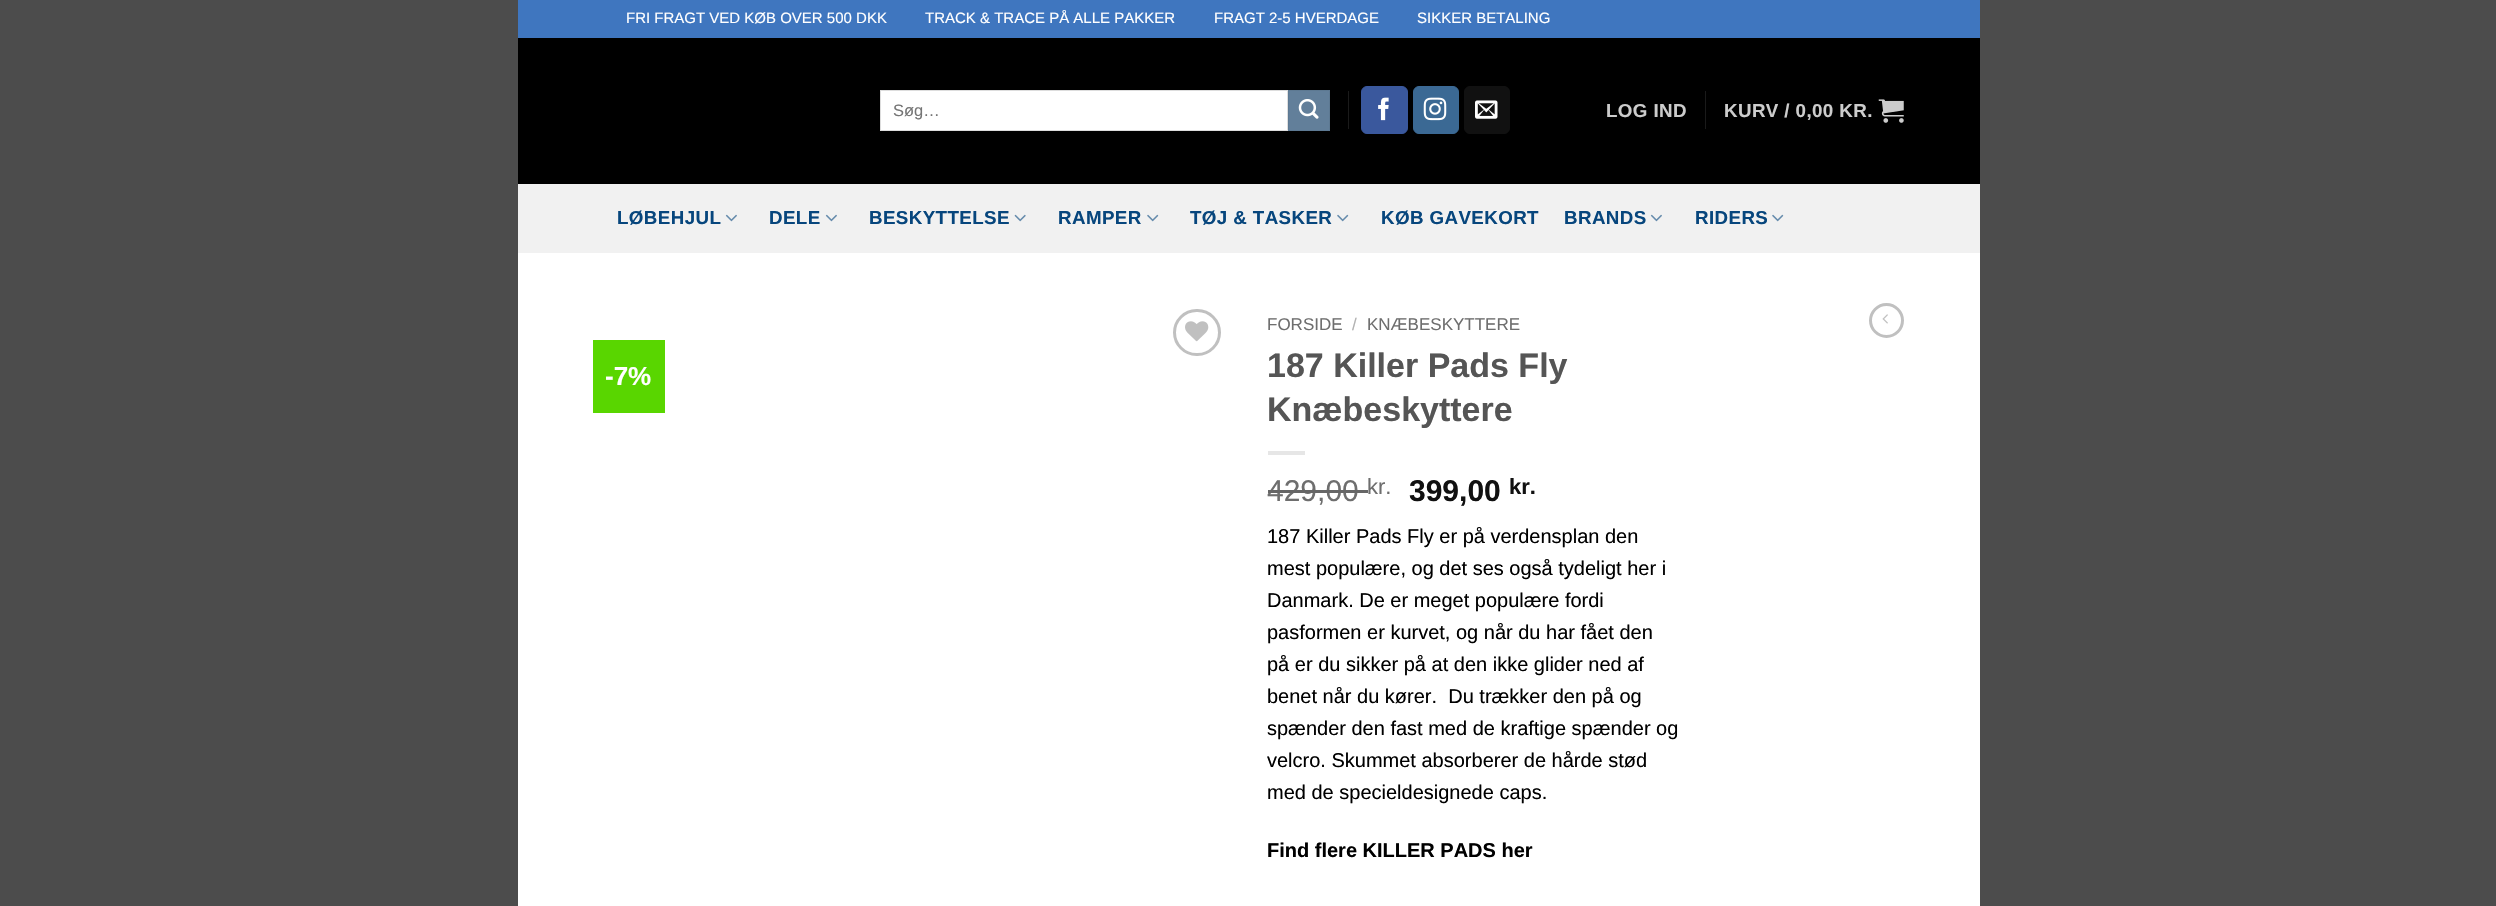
void draw(SkCanvas* canvas) {
	SkPaint paint;
	paint.setAntiAlias(true);
	auto spacedText = [&](const char* s, float x, float y, const SkFont& font, const SkPaint& ink, float letter, float word) {
		std::vector<SkGlyphID> glyphs(font.countText(s, strlen(s), SkTextEncoding::kUTF8));
		std::vector<float> xs(glyphs.size());
		font.textToGlyphs(s, strlen(s), SkTextEncoding::kUTF8, glyphs);
		font.getXPos(glyphs, xs, x);
		float extra = 0;
		for (size_t i = 0; i < glyphs.size(); i++) {
			xs[i] += extra;
			extra += letter + word * (glyphs[i] == font.unicharToGlyph(' '));
		}
		canvas->drawTextBlob(SkTextBlob::MakeFromPosHGlyphs(glyphs, xs, y, font), 0, 0, ink);
	};
	canvas->clear(0xff4c4c4c);
	paint.setColor(0xffffffff);
	canvas->drawRect(SkRect::MakeXYWH(518, 253, 1462, 653), paint);
	paint.setColor(0xff3f76bf);
	canvas->drawRect(SkRect::MakeXYWH(518, 0, 1462, 38), paint);
	SkFont f1(fontMgr->matchFamilyStyle("Liberation Sans", SkFontStyle::Normal()), 15);
	f1.setSubpixel(true);
	paint.setColor(0xffffffff);
	canvas->drawString("FRI FRAGT VED KØB OVER 500 DKK", 626, 23, f1, paint);
	canvas->drawString("TRACK & TRACE PÅ ALLE PAKKER", 925, 23, f1, paint);
	canvas->drawString("FRAGT 2-5 HVERDAGE", 1214, 23, f1, paint);
	canvas->drawString("SIKKER BETALING", 1417, 23, f1, paint);
	paint.setColor(0xff000000);
	canvas->drawRect(SkRect::MakeXYWH(518, 38, 1462, 146), paint);
	paint.setColor(0xffffffff);
	canvas->drawRect(SkRect::MakeXYWH(880.5, 90.5, 407, 40), paint);
	paint.setStroke(true);
	paint.setStrokeWidth(1);
	paint.setColor(0xffdddddd);
	canvas->drawRect(SkRect::MakeXYWH(880.5, 90.5, 407, 40), paint);
	SkFont f2(fontMgr->matchFamilyStyle("Liberation Sans", SkFontStyle::Normal()), 16.5);
	f2.setSubpixel(true);
	paint.setStroke(false);
	paint.setColor(0xff757575);
	canvas->drawString("Søg…", 893, 116, f2, paint);
	paint.setColor(0xff627f9a);
	canvas->drawRect(SkRect::MakeXYWH(1288.5, 90.5, 41, 40), paint);
	paint.setStroke(true);
	paint.setColor(0xff5d7992);
	canvas->drawRect(SkRect::MakeXYWH(1288.5, 90.5, 41, 40), paint);
	canvas->drawImageRect(SkImages::DeferredFromEncodedData(SkData::MakeFromFileName("img1.png")), SkRect::MakeXYWH(1298, 99, 21, 20), SkSamplingOptions());
	paint.setStroke(false);
	paint.setColor(0xff1a1a1a);
	canvas->drawRect(SkRect::MakeXYWH(1348, 91, 1, 38), paint);
	paint.setColor(0xff3a589d);
	canvas->drawRoundRect(SkRect::MakeXYWH(1361.5, 86.5, 46, 47), 5.5, 5.5, paint);
	paint.setStroke(true);
	canvas->drawRoundRect(SkRect::MakeXYWH(1361.5, 86.5, 46, 47), 5.5, 5.5, paint);
	canvas->drawImageRect(SkImages::DeferredFromEncodedData(SkData::MakeFromFileName("img2.png")), SkRect::MakeXYWH(1378, 97, 11, 24), SkSamplingOptions());
	paint.setStroke(false);
	paint.setColor(0xff3b6994);
	canvas->drawRoundRect(SkRect::MakeXYWH(1413.5, 86.5, 45, 47), 5.5, 5.5, paint);
	paint.setStroke(true);
	canvas->drawRoundRect(SkRect::MakeXYWH(1413.5, 86.5, 45, 47), 5.5, 5.5, paint);
	canvas->drawImageRect(SkImages::DeferredFromEncodedData(SkData::MakeFromFileName("img3.png")), SkRect::MakeXYWH(1423, 97, 24, 24), SkSamplingOptions());
	paint.setStroke(false);
	paint.setColor(0xff111111);
	canvas->drawRoundRect(SkRect::MakeXYWH(1464.5, 86.5, 45, 47), 5.5, 5.5, paint);
	paint.setStroke(true);
	canvas->drawRoundRect(SkRect::MakeXYWH(1464.5, 86.5, 45, 47), 5.5, 5.5, paint);
	canvas->drawImageRect(SkImages::DeferredFromEncodedData(SkData::MakeFromFileName("img4.png")), SkRect::MakeXYWH(1475, 100, 23, 19), SkSamplingOptions());
	SkFont f3(fontMgr->matchFamilyStyle("Liberation Sans", SkFontStyle::Bold()), 18.75);
	f3.setSubpixel(true);
	paint.setStroke(false);
	paint.setColor(0xffcccccc);
	spacedText("LOG IND", 1606, 117, f3, paint, 0.4, 0);
	paint.setColor(0xff1a1a1a);
	canvas->drawRect(SkRect::MakeXYWH(1705, 91, 1, 38), paint);
	paint.setColor(0xffcccccc);
	spacedText("KURV / 0,00 KR.", 1724, 117, f3, paint, 0.4, 0);
	canvas->drawImageRect(SkImages::DeferredFromEncodedData(SkData::MakeFromFileName("img5.png")), SkRect::MakeXYWH(1878, 99, 26, 24), SkSamplingOptions());
	paint.setColor(0xfff1f1f1);
	canvas->drawRect(SkRect::MakeXYWH(518, 184, 1462, 69), paint);
	paint.setColor(0xff07467d);
	spacedText("LØBEHJUL", 617, 224, f3, paint, 0.4, 0);
	canvas->drawImageRect(SkImages::DeferredFromEncodedData(SkData::MakeFromFileName("img6.png")), SkRect::MakeXYWH(725, 214, 12, 8), SkSamplingOptions());
	spacedText("DELE", 769, 224, f3, paint, 0.4, 0);
	canvas->drawImageRect(SkImages::DeferredFromEncodedData(SkData::MakeFromFileName("img6.png")), SkRect::MakeXYWH(825, 214, 12, 8), SkSamplingOptions());
	spacedText("BESKYTTELSE", 869, 224, f3, paint, 0.4, 0);
	canvas->drawImageRect(SkImages::DeferredFromEncodedData(SkData::MakeFromFileName("img7.png")), SkRect::MakeXYWH(1014, 214, 12, 8), SkSamplingOptions());
	spacedText("RAMPER", 1058, 224, f3, paint, 0.4, 0);
	canvas->drawImageRect(SkImages::DeferredFromEncodedData(SkData::MakeFromFileName("img8.png")), SkRect::MakeXYWH(1147, 214, 12, 8), SkSamplingOptions());
	spacedText("TØJ & TASKER", 1190, 224, f3, paint, 0.4, 0);
	canvas->drawImageRect(SkImages::DeferredFromEncodedData(SkData::MakeFromFileName("img8.png")), SkRect::MakeXYWH(1337, 214, 12, 8), SkSamplingOptions());
	spacedText("KØB GAVEKORT", 1381, 224, f3, paint, 0.4, 0);
	spacedText("BRANDS", 1564, 224, f3, paint, 0.4, 0);
	canvas->drawImageRect(SkImages::DeferredFromEncodedData(SkData::MakeFromFileName("img6.png")), SkRect::MakeXYWH(1650, 214, 12, 8), SkSamplingOptions());
	spacedText("RIDERS", 1695, 224, f3, paint, 0.4, 0);
	canvas->drawImageRect(SkImages::DeferredFromEncodedData(SkData::MakeFromFileName("img8.png")), SkRect::MakeXYWH(1772, 214, 12, 8), SkSamplingOptions());
	paint.setStroke(true);
	paint.setStrokeWidth(3);
	paint.setColor(0xffc0c0c0);
	canvas->drawRoundRect(SkRect::MakeXYWH(1174.5, 310.5, 45, 44), 22, 22, paint);
	canvas->drawImageRect(SkImages::DeferredFromEncodedData(SkData::MakeFromFileName("img9.png")), SkRect::MakeXYWH(1185, 321, 24, 21), SkSamplingOptions());
	paint.setStroke(false);
	paint.setColor(0xff59d600);
	canvas->drawRect(SkRect::MakeXYWH(593, 340, 72, 73), paint);
	SkFont f4(fontMgr->matchFamilyStyle("Liberation Sans", SkFontStyle::Bold()), 26);
	f4.setSubpixel(true);
	paint.setColor(0xffffffff);
	canvas->drawString("-7%", 605, 385, f4, paint);
	SkFont f5(fontMgr->matchFamilyStyle("Liberation Sans", SkFontStyle::Normal()), 17);
	f5.setSubpixel(true);
	paint.setColor(0xff6e6e6e);
	canvas->drawString("FORSIDE", 1267, 330, f5, paint);
	paint.setColor(0xffb2b2b2);
	canvas->drawString("/", 1352, 330, f5, paint);
	paint.setColor(0xff6e6e6e);
	canvas->drawString("KNÆBESKYTTERE", 1367, 330, f5, paint);
	SkFont f6(fontMgr->matchFamilyStyle("Liberation Sans", SkFontStyle::Bold()), 34);
	f6.setSubpixel(true);
	paint.setColor(0xff555555);
	canvas->drawString("187 Killer Pads Fly", 1267, 377, f6, paint);
	canvas->drawString("Knæbeskyttere", 1267, 421, f6, paint);
	paint.setColor(0xffe6e6e6);
	canvas->drawRect(SkRect::MakeXYWH(1268, 451, 37, 4), paint);
	SkFont f7(fontMgr->matchFamilyStyle("Liberation Sans", SkFontStyle::Normal()), 30);
	f7.setSubpixel(true);
	paint.setColor(0xff6e6e6e);
	canvas->drawString("429,00", 1267, 501, f7, paint);
	paint.setColor(0xff666666);
	canvas->drawRect(SkRect::MakeXYWH(1268, 490, 100, 3), paint);
	SkFont f8(fontMgr->matchFamilyStyle("Liberation Sans", SkFontStyle::Normal()), 22);
	f8.setSubpixel(true);
	paint.setColor(0xff6e6e6e);
	canvas->drawString("kr.", 1367, 494, f8, paint);
	SkFont f9(fontMgr->matchFamilyStyle("Liberation Sans", SkFontStyle::Bold()), 30);
	f9.setSubpixel(true);
	paint.setColor(0xff111111);
	canvas->drawString("399,00", 1409, 501, f9, paint);
	SkFont f10(fontMgr->matchFamilyStyle("Liberation Sans", SkFontStyle::Bold()), 22);
	f10.setSubpixel(true);
	canvas->drawString("kr.", 1509, 494, f10, paint);
	SkFont f11(fontMgr->matchFamilyStyle("Liberation Sans", SkFontStyle::Normal()), 20);
	f11.setSubpixel(true);
	paint.setColor(0xff000000);
	canvas->drawString("187 Killer Pads Fly er på verdensplan den", 1267, 543, f11, paint);
	canvas->drawString("mest populære, og det ses også tydeligt her i", 1267, 575, f11, paint);
	canvas->drawString("Danmark. De er meget populære fordi", 1267, 607, f11, paint);
	canvas->drawString("pasformen er kurvet, og når du har fået den", 1267, 639, f11, paint);
	canvas->drawString("på er du sikker på at den ikke glider ned af", 1267, 671, f11, paint);
	canvas->drawString("benet når du kører.  Du trækker den på og", 1267, 703, f11, paint);
	canvas->drawString("spænder den fast med de kraftige spænder og", 1267, 735, f11, paint);
	canvas->drawString("velcro. Skummet absorberer de hårde stød", 1267, 767, f11, paint);
	canvas->drawString("med de specieldesignede caps.", 1267, 799, f11, paint);
	SkFont f12(fontMgr->matchFamilyStyle("Liberation Sans", SkFontStyle::Bold()), 20);
	f12.setSubpixel(true);
	canvas->drawString("Find flere KILLER PADS her", 1267, 857, f12, paint);
	paint.setStroke(true);
	paint.setColor(0xffc0c0c0);
	canvas->drawCircle(1886.5, 320.5, 16, paint);
	canvas->drawImageRect(SkImages::DeferredFromEncodedData(SkData::MakeFromFileName("img10.png")), SkRect::MakeXYWH(1882, 314, 6, 10), SkSamplingOptions());
}
